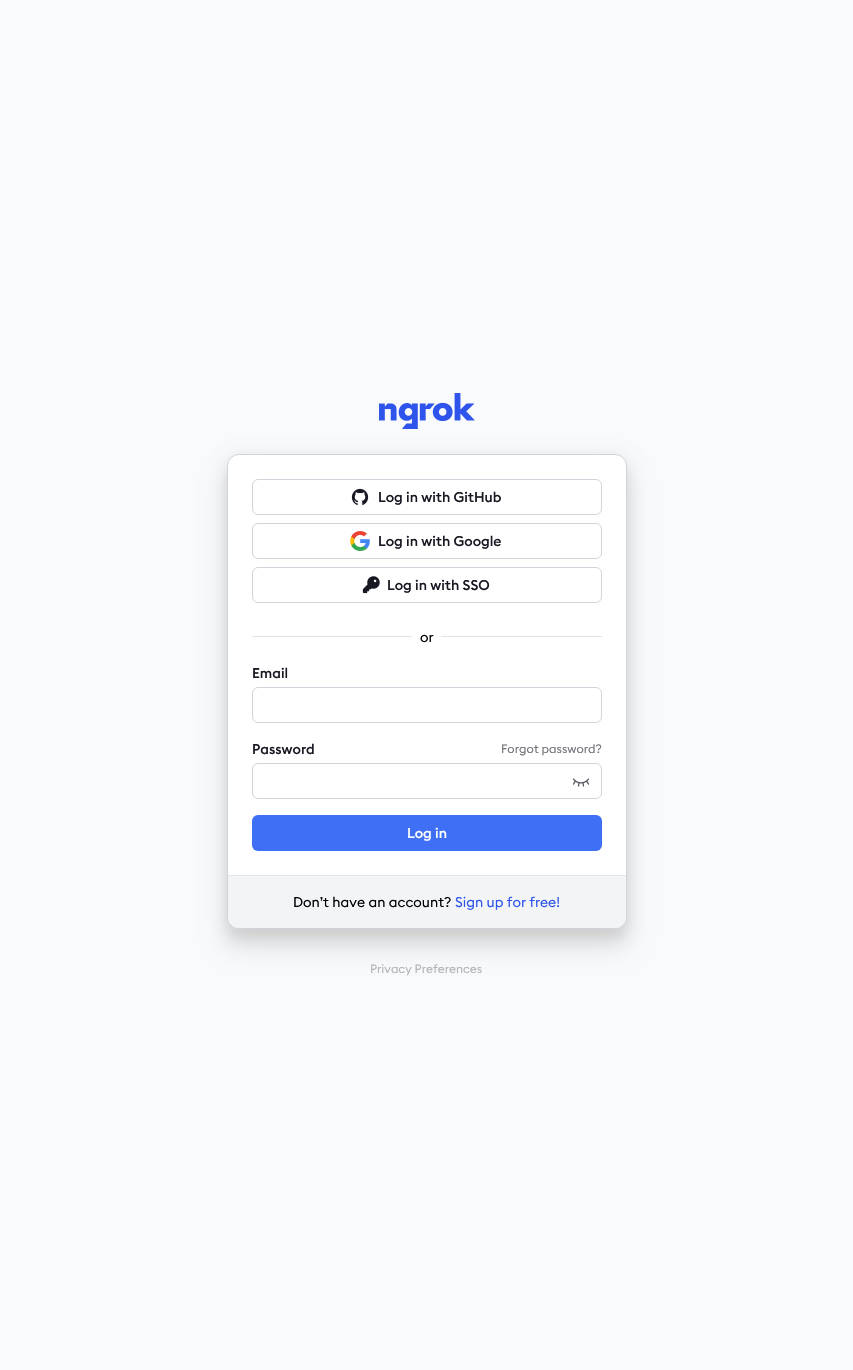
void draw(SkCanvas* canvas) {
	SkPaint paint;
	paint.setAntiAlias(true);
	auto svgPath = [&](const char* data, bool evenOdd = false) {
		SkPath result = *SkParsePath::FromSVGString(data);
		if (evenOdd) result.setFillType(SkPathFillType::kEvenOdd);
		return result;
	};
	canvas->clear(0xfff9fafb);
	canvas->drawImageRect(SkImages::DeferredFromEncodedData(SkData::MakeFromFileName("img1.png")), SkRect::MakeXYWH(379, 393, 96, 36), SkSamplingOptions());
	paint.setColor(0x1a000000);
	paint.setMaskFilter(SkMaskFilter::MakeBlur(kNormal_SkBlurStyle, 12.5));
	canvas->drawRoundRect(SkRect::MakeXYWH(225, 469, 404, 479), 14, 14, paint);
	paint.setMaskFilter(nullptr);
	paint.setColor(0x0d000000);
	paint.setMaskFilter(SkMaskFilter::MakeBlur(kNormal_SkBlurStyle, 5));
	canvas->drawRoundRect(SkRect::MakeXYWH(227, 465, 400, 475), 12, 12, paint);
	paint.setMaskFilter(nullptr);
	paint.setMaskFilter(SkMaskFilter::MakeBlur(kNormal_SkBlurStyle, 7.5));
	canvas->drawRoundRect(SkRect::MakeXYWH(227, 454, 400, 475), 12, 12, paint);
	paint.setMaskFilter(nullptr);
	paint.setColor(0xffffffff);
	canvas->drawRoundRect(SkRect::MakeXYWH(227.5, 454.5, 399, 474), 11.5, 11.5, paint);
	paint.setStroke(true);
	paint.setStrokeWidth(1);
	paint.setColor(0xffd1d4db);
	canvas->drawRoundRect(SkRect::MakeXYWH(227.5, 454.5, 399, 474), 11.5, 11.5, paint);
	canvas->drawRoundRect(SkRect::MakeXYWH(252.5, 479.5, 349, 35), 5.5, 5.5, paint);
	canvas->drawImageRect(SkImages::DeferredFromEncodedData(SkData::MakeFromFileName("img2.png")), SkRect::MakeXYWH(351, 488, 18, 18), SkSamplingOptions());
	SkFont f1(fontMgr->matchFamilyStyle("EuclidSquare", SkFontStyle(500, SkFontStyle::kNormal_Width, SkFontStyle::kUpright_Slant)), 14);
	f1.setSubpixel(true);
	paint.setStroke(false);
	paint.setColor(0xff181823);
	canvas->drawString("Log in with GitHub", 378, 502, f1, paint);
	paint.setStroke(true);
	paint.setColor(0xffd1d4db);
	canvas->drawRoundRect(SkRect::MakeXYWH(252.5, 523.5, 349, 35), 5.5, 5.5, paint);
	canvas->drawImageRect(SkImages::DeferredFromEncodedData(SkData::MakeFromFileName("img3.png")), SkRect::MakeXYWH(350, 531, 20, 20), SkSamplingOptions());
	paint.setStroke(false);
	paint.setColor(0xff181823);
	canvas->drawString("Log in with Google", 378, 546, f1, paint);
	paint.setStroke(true);
	paint.setColor(0xffd1d4db);
	canvas->drawRoundRect(SkRect::MakeXYWH(252.5, 567.5, 349, 35), 5.5, 5.5, paint);
	canvas->drawImageRect(SkImages::DeferredFromEncodedData(SkData::MakeFromFileName("img4.png")), SkRect::MakeXYWH(362, 576, 18, 18), SkSamplingOptions());
	paint.setStroke(false);
	paint.setColor(0xff181823);
	canvas->drawString("Log in with SSO", 387, 590, f1, paint);
	paint.setColor(0xffe2e3e6);
	canvas->drawRect(SkRect::MakeXYWH(252, 636, 160, 1), paint);
	SkFont f2(fontMgr->matchFamilyStyle("EuclidSquare", SkFontStyle::Normal()), 14);
	f2.setSubpixel(true);
	paint.setColor(0xff000000);
	canvas->drawString("or", 420, 642, f2, paint);
	paint.setColor(0xffe2e3e6);
	canvas->drawRect(SkRect::MakeXYWH(441, 636, 161, 1), paint);
	paint.setColor(0xff181823);
	canvas->drawString("Email", 252, 678, f1, paint);
	paint.setStroke(true);
	paint.setColor(0xffd1d4db);
	canvas->drawRoundRect(SkRect::MakeXYWH(252.5, 687.5, 349, 35), 5.5, 5.5, paint);
	paint.setStroke(false);
	paint.setColor(0xff181823);
	canvas->drawString("Password", 252, 754, f1, paint);
	SkFont f3(fontMgr->matchFamilyStyle("EuclidSquare", SkFontStyle::Normal()), 12);
	f3.setSubpixel(true);
	paint.setColor(0xff74747b);
	canvas->drawString("Forgot password?", 501, 753, f3, paint);
	paint.setStroke(true);
	paint.setColor(0xffd1d4db);
	canvas->drawRoundRect(SkRect::MakeXYWH(252.5, 763.5, 349, 35), 5.5, 5.5, paint);
	canvas->drawImageRect(SkImages::DeferredFromEncodedData(SkData::MakeFromFileName("img5.png")), SkRect::MakeXYWH(572, 778, 18, 9), SkSamplingOptions());
	paint.setStroke(false);
	paint.setColor(0xff3e6ff4);
	canvas->drawRoundRect(SkRect::MakeXYWH(252, 815, 350, 36), 6, 6, paint);
	paint.setColor(0xffffffff);
	canvas->drawString("Log in", 407, 838, f1, paint);
	paint.setColor(0xfff3f4f6);
	canvas->drawPath(svgPath("M228 876H626V917C626 923 621 928 615 928H239C233 928 228 923 228 917Z"), paint);
	paint.setColor(0xffe2e4e9);
	canvas->drawRect(SkRect::MakeXYWH(228, 875, 398, 1), paint);
	paint.setColor(0xff000000);
	canvas->drawString("Don’t have an account?", 293, 907, f2, paint);
	paint.setColor(0xff2e54eb);
	canvas->drawString("Sign up for free!", 455, 907, f2, paint);
	paint.setColor(0xffb5b5b9);
	canvas->drawString("Privacy Preferences", 370, 973, f3, paint);
}
